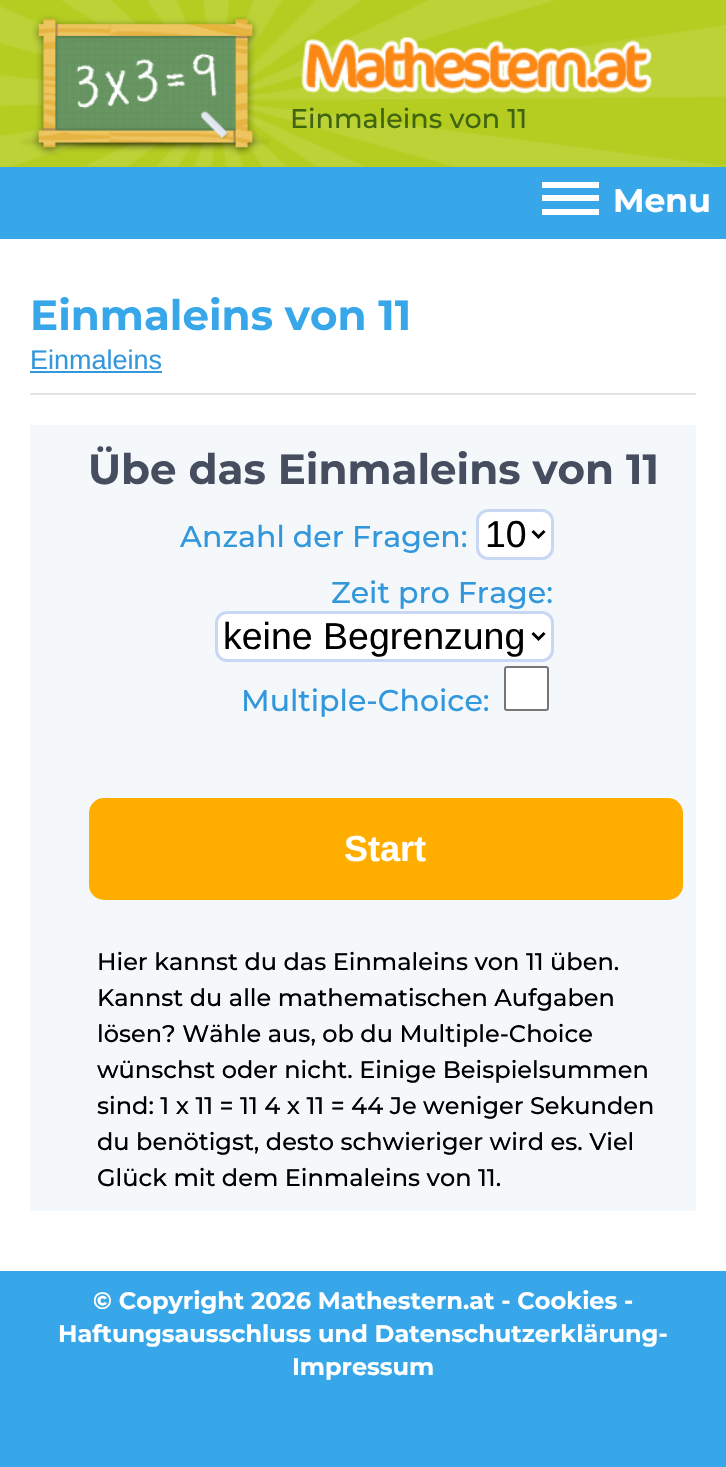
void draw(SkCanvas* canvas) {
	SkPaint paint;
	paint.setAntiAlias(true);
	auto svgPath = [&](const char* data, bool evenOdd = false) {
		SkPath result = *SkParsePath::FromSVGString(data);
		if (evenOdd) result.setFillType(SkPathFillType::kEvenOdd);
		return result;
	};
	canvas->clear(0xff37a7e9);
	paint.setColor(0xffb5cd21);
	canvas->drawRect(SkRect::MakeXYWH(0, 0, 726, 167), paint);
	canvas->drawImageRect(SkImages::DeferredFromEncodedData(SkData::MakeFromFileName("img1.png")), SkRect::MakeXYWH(0, 0, 726, 167), SkSamplingOptions());
	canvas->drawImageRect(SkImages::DeferredFromEncodedData(SkData::MakeFromFileName("img2.png")), SkRect::MakeXYWH(20, 15, 251, 141), SkSamplingOptions());
	canvas->drawImageRect(SkImages::DeferredFromEncodedData(SkData::MakeFromFileName("img3.png")), SkRect::MakeXYWH(301, 37, 351, 57), SkSamplingOptions());
	SkFont f1(fontMgr->matchFamilyStyle("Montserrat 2", SkFontStyle(100, SkFontStyle::kNormal_Width, SkFontStyle::kUpright_Slant)), 27);
	f1.setSubpixel(true);
	paint.setColor(0xff40650f);
	canvas->drawString("Einmaleins von 11", 290, 128, f1, paint);
	paint.setColor(0xffffffff);
	canvas->drawRect(SkRect::MakeXYWH(542, 182, 57, 6), paint);
	canvas->drawRect(SkRect::MakeXYWH(542, 195, 57, 6), paint);
	canvas->drawRect(SkRect::MakeXYWH(542, 209, 57, 6), paint);
	SkFont f2(fontMgr->matchFamilyStyle("Montserrat", SkFontStyle(100, SkFontStyle::kNormal_Width, SkFontStyle::kUpright_Slant)), 33);
	f2.setSubpixel(true);
	canvas->drawString("Menu", 613, 212, f2, paint);
	canvas->drawRect(SkRect::MakeXYWH(0, 239, 726, 1032), paint);
	paint.setColor(0xffe3e4e6);
	canvas->drawRect(SkRect::MakeXYWH(30, 393, 666, 2), paint);
	SkFont f3(fontMgr->matchFamilyStyle("Montserrat", SkFontStyle(100, SkFontStyle::kNormal_Width, SkFontStyle::kUpright_Slant)), 42);
	f3.setSubpixel(true);
	paint.setColor(0xff37a7e9);
	canvas->drawString("Einmaleins von 11", 30, 330, f3, paint);
	SkFont f4(fontMgr->matchFamilyStyle("Liberation Sans", SkFontStyle::Normal()), 27);
	f4.setSubpixel(true);
	paint.setColor(0xff3397db);
	canvas->drawString("Einmaleins", 30, 369, f4, paint);
	canvas->drawRect(SkRect::MakeXYWH(30, 371, 132, 2), paint);
	paint.setColor(0xfff4f8fb);
	canvas->drawRect(SkRect::MakeXYWH(30, 425, 666, 786), paint);
	paint.setColor(0xff464d5f);
	canvas->drawString("Übe das Einmaleins von 11", 88, 484, f3, paint);
	SkFont f5(fontMgr->matchFamilyStyle("Montserrat 2", SkFontStyle(100, SkFontStyle::kNormal_Width, SkFontStyle::kUpright_Slant)), 30);
	f5.setSubpixel(true);
	paint.setColor(0xff3397db);
	canvas->drawString("Anzahl der Fragen:", 180, 547, f5, paint);
	paint.setColor(0xffffffff);
	canvas->drawRoundRect(SkRect::MakeXYWH(477.5, 510.5, 75, 48), 10.5, 10.5, paint);
	paint.setStroke(true);
	paint.setStrokeWidth(3);
	paint.setColor(0xffc9d7f5);
	canvas->drawRoundRect(SkRect::MakeXYWH(477.5, 510.5, 75, 48), 10.5, 10.5, paint);
	paint.setColor(0xff000000);
	canvas->drawPath(svgPath("M532.5 531L538.5 537L544.5 531"), paint);
	SkFont f6(fontMgr->matchFamilyStyle("Liberation Sans", SkFontStyle::Normal()), 37.5);
	f6.setSubpixel(true);
	paint.setStroke(false);
	canvas->drawString("10", 485, 547, f6, paint);
	paint.setColor(0xff3397db);
	canvas->drawString("Zeit pro Frage:", 331, 603, f5, paint);
	paint.setColor(0xffffffff);
	canvas->drawRoundRect(SkRect::MakeXYWH(216.5, 612.5, 336, 48), 10.5, 10.5, paint);
	paint.setStroke(true);
	paint.setColor(0xffc9d7f5);
	canvas->drawRoundRect(SkRect::MakeXYWH(216.5, 612.5, 336, 48), 10.5, 10.5, paint);
	paint.setColor(0xff000000);
	canvas->drawPath(svgPath("M532.5 633L538.5 639L544.5 633"), paint);
	paint.setStroke(false);
	canvas->drawString("keine Begrenzung", 223, 649, f6, paint);
	paint.setColor(0xff3397db);
	canvas->drawString("Multiple-Choice:", 241, 711, f5, paint);
	paint.setColor(0xffffffff);
	canvas->drawRoundRect(SkRect::MakeXYWH(505, 667, 43, 43), 2, 2, paint);
	paint.setStroke(true);
	paint.setStrokeWidth(2);
	paint.setColor(0xff767676);
	canvas->drawRoundRect(SkRect::MakeXYWH(505, 667, 43, 43), 2, 2, paint);
	paint.setStroke(false);
	paint.setColor(0xffffae00);
	canvas->drawRoundRect(SkRect::MakeXYWH(89, 798, 594, 102), 15, 15, paint);
	SkFont f7(fontMgr->matchFamilyStyle("Liberation Sans", SkFontStyle::Bold()), 36);
	f7.setSubpixel(true);
	paint.setColor(0xffffffff);
	canvas->drawString("Start", 344, 861, f7, paint);
	SkFont f8(fontMgr->matchFamilyStyle("Montserrat 2", SkFontStyle(100, SkFontStyle::kNormal_Width, SkFontStyle::kUpright_Slant)), 24);
	f8.setSubpixel(true);
	paint.setColor(0xff000000);
	canvas->drawString("Hier kannst du das Einmaleins von 11 üben.", 97, 970, f8, paint);
	canvas->drawString("Kannst du alle mathematischen Aufgaben", 97, 1006, f8, paint);
	canvas->drawString("lösen? Wähle aus, ob du Multiple-Choice", 97, 1042, f8, paint);
	canvas->drawString("wünschst oder nicht. Einige Beispielsummen", 97, 1078, f8, paint);
	canvas->drawString("sind: 1 x 11 = 11 4 x 11 = 44 Je weniger Sekunden", 97, 1114, f8, paint);
	canvas->drawString("du benötigst, desto schwieriger wird es. Viel", 97, 1150, f8, paint);
	canvas->drawString("Glück mit dem Einmaleins von 11.", 97, 1186, f8, paint);
	SkFont f9(fontMgr->matchFamilyStyle("Montserrat", SkFontStyle(100, SkFontStyle::kNormal_Width, SkFontStyle::kUpright_Slant)), 24);
	f9.setSubpixel(true);
	paint.setColor(0xffffffff);
	canvas->drawString("© Copyright 2026 Mathestern.at - Cookies -", 93, 1309, f9, paint);
	canvas->drawString("Haftungsausschluss und Datenschutzerklärung-", 58, 1342, f9, paint);
	canvas->drawString("Impressum", 292, 1375, f9, paint);
}
